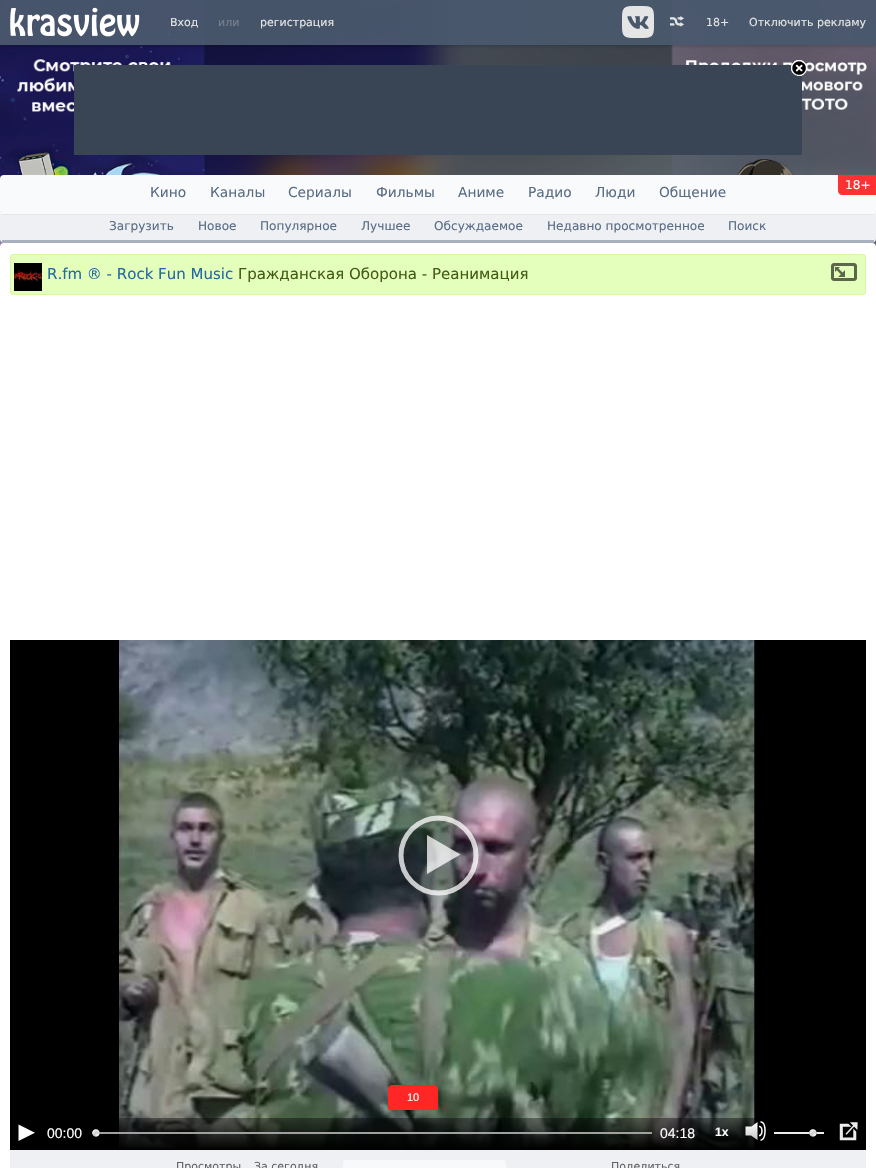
void draw(SkCanvas* canvas) {
	SkPaint paint;
	paint.setAntiAlias(true);
	auto svgPath = [&](const char* data, bool evenOdd = false) {
		SkPath result = *SkParsePath::FromSVGString(data);
		if (evenOdd) result.setFillType(SkPathFillType::kEvenOdd);
		return result;
	};
	canvas->clear(0xffffffff);
	canvas->drawImageRect(SkImages::DeferredFromEncodedData(SkData::MakeFromFileName("img1.png")), SkRect::MakeXYWH(0, 0, 876, 247), SkSamplingOptions());
	canvas->save();
	canvas->clipRect(SkRect::MakeXYWH(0, 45, 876, 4));
	paint.setColor(0x33000000);
	paint.setMaskFilter(SkMaskFilter::MakeBlur(kNormal_SkBlurStyle, 2));
	canvas->drawRect(SkRect::MakeXYWH(0, 1, 876, 45), paint);
	paint.setMaskFilter(nullptr);
	canvas->restore();
	paint.setColor(0xf249576d);
	canvas->drawRect(SkRect::MakeXYWH(0, 0, 876, 45), paint);
	canvas->drawImageRect(SkImages::DeferredFromEncodedData(SkData::MakeFromFileName("img2.png")), SkRect::MakeXYWH(10, 7, 130, 30), SkSamplingOptions());
	SkFont f1(fontMgr->matchFamilyStyle("DejaVu Sans", SkFontStyle::Normal()), 11);
	f1.setSubpixel(true);
	paint.setColor(0xffe5e5e5);
	canvas->drawString("Вход", 170, 26, f1, paint);
	paint.setColor(0xff79808c);
	canvas->drawString("или", 218, 26, f1, paint);
	paint.setColor(0xffe5e5e5);
	canvas->drawString("регистрация", 260, 26, f1, paint);
	canvas->drawImageRect(SkImages::DeferredFromEncodedData(SkData::MakeFromFileName("img3.png")), SkRect::MakeXYWH(622, 6, 32, 32), SkSamplingOptions());
	canvas->drawImageRect(SkImages::DeferredFromEncodedData(SkData::MakeFromFileName("img4.png")), SkRect::MakeXYWH(670, 16, 14, 11), SkSamplingOptions());
	canvas->drawString("18+", 706, 26, f1, paint);
	canvas->drawString("Отключить рекламу", 749, 26, f1, paint);
	paint.setColor(0xff394455);
	canvas->drawRect(SkRect::MakeXYWH(74, 65, 728, 90), paint);
	canvas->drawImageRect(SkImages::DeferredFromEncodedData(SkData::MakeFromFileName("img5.png")), SkRect::MakeXYWH(791, 60, 16, 16), SkSamplingOptions());
	paint.setColor(0xffeef0f3);
	canvas->drawPath(svgPath("M0 212H876V239C876 241 874 243 872 243H4C2 243 0 241 0 239Z"), paint);
	paint.setColor(0xfff9fafb);
	canvas->drawRoundRect(SkRect::MakeXYWH(0, 175, 876, 40), 4, 4, paint);
	paint.setColor(0xffe2e5e9);
	canvas->drawRect(SkRect::MakeXYWH(2, 214, 872, 1), paint);
	paint.setColor(0xfffe3232);
	canvas->drawPath(svgPath("M838 175H876V195H842C840 195 838 193 838 191Z"), paint);
	SkFont f2(fontMgr->matchFamilyStyle("DejaVu Sans", SkFontStyle::Normal()), 12.1);
	f2.setSubpixel(true);
	paint.setColor(0xffffffff);
	canvas->drawString("18+", 845, 189, f2, paint);
	SkFont f3(fontMgr->matchFamilyStyle("DejaVu Sans", SkFontStyle::Normal()), 13.75);
	f3.setSubpixel(true);
	paint.setColor(0xff596c84);
	canvas->drawString("Кино", 150, 197, f3, paint);
	canvas->drawString("Каналы", 210, 197, f3, paint);
	canvas->drawString("Сериалы", 288, 197, f3, paint);
	canvas->drawString("Фильмы", 376, 197, f3, paint);
	canvas->drawString("Аниме", 458, 197, f3, paint);
	canvas->drawString("Радио", 528, 197, f3, paint);
	canvas->drawString("Люди", 595, 197, f3, paint);
	canvas->drawString("Общение", 659, 197, f3, paint);
	paint.setColor(0xffa7b0bc);
	canvas->drawRect(SkRect::MakeXYWH(2, 240, 872, 3), paint);
	paint.setColor(0xff596c84);
	canvas->drawString("Загрузить", 109, 230, f2, paint);
	canvas->drawString("Новое", 198, 230, f2, paint);
	canvas->drawString("Популярное", 260, 230, f2, paint);
	canvas->drawString("Лучшее", 361, 230, f2, paint);
	canvas->drawString("Обсуждаемое", 434, 230, f2, paint);
	canvas->drawString("Недавно просмотренное", 547, 230, f2, paint);
	canvas->drawString("Поиск", 728, 230, f2, paint);
	paint.setColor(0xffffffff);
	canvas->drawRoundRect(SkRect::MakeXYWH(0, 243, 876, 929), 4, 4, paint);
	paint.setColor(0xffe4ffbc);
	canvas->drawRoundRect(SkRect::MakeXYWH(10.5, 254.5, 855, 40), 2.5, 2.5, paint);
	paint.setStroke(true);
	paint.setStrokeWidth(1);
	paint.setColor(0xffd7f6a9);
	canvas->drawRoundRect(SkRect::MakeXYWH(10.5, 254.5, 855, 40), 2.5, 2.5, paint);
	canvas->drawImageRect(SkImages::DeferredFromEncodedData(SkData::MakeFromFileName("img6.png")), SkRect::MakeXYWH(14, 263, 28, 28), SkSamplingOptions());
	SkFont f4(fontMgr->matchFamilyStyle("DejaVu Sans", SkFontStyle::Normal()), 15);
	f4.setSubpixel(true);
	paint.setStroke(false);
	paint.setColor(0xff2468a2);
	canvas->drawString("R.fm ® - Rock Fun Music", 47, 279, f4, paint);
	paint.setColor(0xff435b15);
	canvas->drawString("Гражданская Оборона - Реанимация", 238, 279, f4, paint);
	canvas->drawImageRect(SkImages::DeferredFromEncodedData(SkData::MakeFromFileName("img7.png")), SkRect::MakeXYWH(831, 263, 26, 18), SkSamplingOptions());
	paint.setColor(0xff000000);
	canvas->drawRect(SkRect::MakeXYWH(10, 640, 856, 510), paint);
	canvas->drawImageRect(SkImages::DeferredFromEncodedData(SkData::MakeFromFileName("img8.png")), SkRect::MakeXYWH(119, 640, 636, 510), SkSamplingOptions());
	paint.setColor(0xffff2626);
	canvas->drawPath(svgPath("M393 1085H433C436 1085 438 1087 438 1090V1110H388V1090C388 1087 390 1085 393 1085Z"), paint);
	SkFont f5(fontMgr->matchFamilyStyle("Liberation Sans", SkFontStyle::Normal()), 11);
	f5.setSubpixel(true);
	paint.setColor(0xffffffff);
	canvas->drawString("10", 407, 1101, f5, paint);
	paint.setColor(0xbfffffff);
	canvas->drawPath(svgPath("M460.5 854.5L427 874V835Z"), paint);
	paint.setStroke(true);
	paint.setStrokeWidth(5);
	canvas->drawPath(svgPath("M401 855.5C401 835 418 818 438.5 818C459 818 476 835 476 855.5C476 876 459 893 438.5 893C418 893 401 876 401 855.5Z"), paint);
	paint.setStroke(false);
	{
		const SkColor colors[] = {0xff000000, 0x66000000};
		const float stops[] = {0, 1};
		const SkPoint ends[] = {{438, 1150}, {438, 1118}};
		paint.setShader(SkGradientShader::MakeLinear(ends, colors, stops, 2, SkTileMode::kClamp));
		paint.setAlpha(255);
	}
	canvas->drawRect(SkRect::MakeXYWH(119, 1118, 636, 32), paint);
	canvas->drawImageRect(SkImages::DeferredFromEncodedData(SkData::MakeFromFileName("img9.png")), SkRect::MakeXYWH(18, 1124, 17, 17), SkSamplingOptions());
	SkFont f6(fontMgr->matchFamilyStyle("Liberation Sans", SkFontStyle::Normal()), 14);
	f6.setSubpixel(true);
	paint.setShader(nullptr);
	paint.setColor(0xffffffff);
	canvas->drawString("00:00", 47, 1138, f6, paint);
	paint.setColor(0xffa0a0a0);
	canvas->drawRect(SkRect::MakeXYWH(92, 1132, 560, 2), paint);
	canvas->drawImageRect(SkImages::DeferredFromEncodedData(SkData::MakeFromFileName("img10.png")), SkRect::MakeXYWH(92, 1129, 8, 8), SkSamplingOptions());
	paint.setColor(0xffffffff);
	canvas->drawString("04:18", 660, 1138, f6, paint);
	SkFont f7(fontMgr->matchFamilyStyle("Liberation Sans", SkFontStyle::Bold()), 12.1);
	f7.setSubpixel(true);
	canvas->drawString("1x", 715, 1136, f7, paint);
	canvas->drawImageRect(SkImages::DeferredFromEncodedData(SkData::MakeFromFileName("img11.png")), SkRect::MakeXYWH(745, 1121, 21, 20), SkSamplingOptions());
	paint.setColor(0xffececec);
	canvas->drawRect(SkRect::MakeXYWH(774, 1132, 50, 2), paint);
	canvas->drawImageRect(SkImages::DeferredFromEncodedData(SkData::MakeFromFileName("img12.png")), SkRect::MakeXYWH(809, 1129, 8, 8), SkSamplingOptions());
	canvas->drawImageRect(SkImages::DeferredFromEncodedData(SkData::MakeFromFileName("img13.png")), SkRect::MakeXYWH(839, 1122, 19, 19), SkSamplingOptions());
	paint.setColor(0xffeef0f3);
	canvas->drawRect(SkRect::MakeXYWH(10, 1150, 856, 18), paint);
	paint.setColor(0xff626262);
	canvas->drawString("Просмотры", 176, 1170, f1, paint);
	canvas->drawString("За сегодня", 254, 1170, f1, paint);
	paint.setColor(0xfff8f9fa);
	canvas->drawRoundRect(SkRect::MakeXYWH(343, 1160, 163, 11), 3, 3, paint);
	paint.setColor(0xff626262);
	canvas->drawString("Поделиться", 611, 1170, f1, paint);
}
